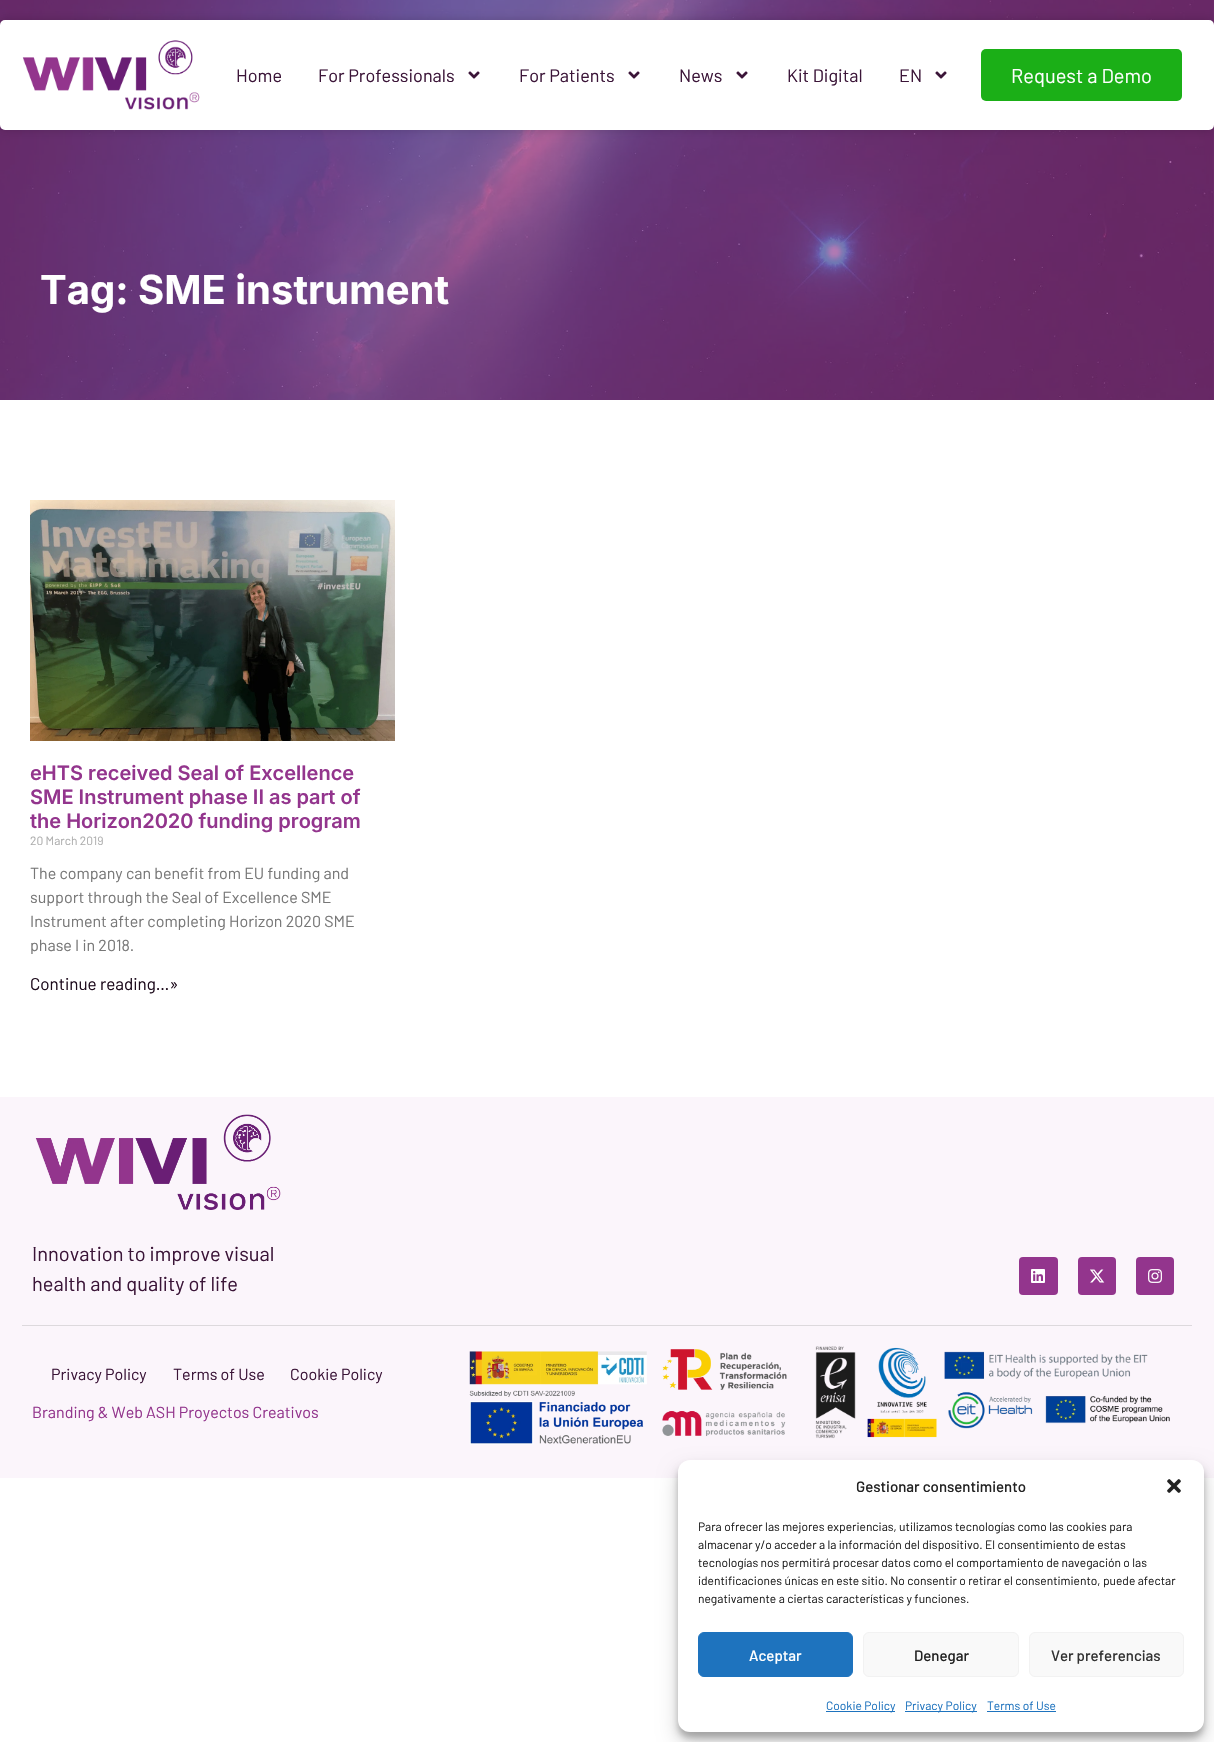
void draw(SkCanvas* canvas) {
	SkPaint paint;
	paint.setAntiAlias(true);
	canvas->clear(0xffffffff);
	canvas->drawImageRect(SkImages::DeferredFromEncodedData(SkData::MakeFromFileName("img3.png")), SkRect::MakeXYWH(0, 0, 1214, 400), SkSamplingOptions());
	paint.setColor(0x29000000);
	paint.setMaskFilter(SkMaskFilter::MakeBlur(kNormal_SkBlurStyle, 5));
	canvas->drawRoundRect(SkRect::MakeXYWH(0, 20, 1214, 110), 5, 5, paint);
	paint.setMaskFilter(nullptr);
	paint.setColor(0xffffffff);
	canvas->drawRoundRect(SkRect::MakeXYWH(0, 20, 1214, 110), 5, 5, paint);
	canvas->drawImageRect(SkImages::DeferredFromEncodedData(SkData::MakeFromFileName("img1.png")), SkRect::MakeXYWH(22, 40, 178, 70), SkSamplingOptions());
	SkFont f1(fontMgr->matchFamilyStyle("Barlow", SkFontStyle::Normal()), 18);
	f1.setSubpixel(true);
	paint.setColor(0xff3b1538);
	canvas->drawString("Home", 236, 82, f1, paint);
	canvas->drawString("For Professionals", 318, 82, f1, paint);
	canvas->drawImageRect(SkImages::DeferredFromEncodedData(SkData::MakeFromFileName("img2.png")), SkRect::MakeXYWH(468, 71, 12, 8), SkSamplingOptions());
	canvas->drawString("For Patients", 519, 82, f1, paint);
	canvas->drawImageRect(SkImages::DeferredFromEncodedData(SkData::MakeFromFileName("img2.png")), SkRect::MakeXYWH(628, 71, 12, 8), SkSamplingOptions());
	canvas->drawString("News", 679, 82, f1, paint);
	canvas->drawImageRect(SkImages::DeferredFromEncodedData(SkData::MakeFromFileName("img2.png")), SkRect::MakeXYWH(736, 71, 12, 8), SkSamplingOptions());
	canvas->drawString("Kit Digital", 787, 82, f1, paint);
	canvas->drawString("EN", 899, 82, f1, paint);
	canvas->drawImageRect(SkImages::DeferredFromEncodedData(SkData::MakeFromFileName("img2.png")), SkRect::MakeXYWH(935, 71, 12, 8), SkSamplingOptions());
	paint.setColor(0xff1baf17);
	canvas->drawRoundRect(SkRect::MakeXYWH(981, 49, 201, 52), 5, 5, paint);
	SkFont f2(fontMgr->matchFamilyStyle("Barlow", SkFontStyle::Normal()), 20);
	f2.setSubpixel(true);
	paint.setColor(0xffffffff);
	canvas->drawString("Request a Demo", 1011, 83, f2, paint);
	SkFont f3(fontMgr->matchFamilyStyle("Inter", SkFontStyle::Bold()), 40);
	f3.setSubpixel(true);
	canvas->drawString("Tag: SME instrument", 40, 304, f3, paint);
	canvas->drawImageRect(SkImages::DeferredFromEncodedData(SkData::MakeFromFileName("img4.png")), SkRect::MakeXYWH(30, 500, 365, 241), SkSamplingOptions());
	SkFont f4(fontMgr->matchFamilyStyle("Inter", SkFontStyle(600, SkFontStyle::kNormal_Width, SkFontStyle::kUpright_Slant)), 20);
	f4.setSubpixel(true);
	paint.setColor(0xff93358d);
	canvas->drawString("eHTS received Seal of Excellence", 30, 780, f4, paint);
	canvas->drawString("SME Instrument phase II as part of", 30, 804, f4, paint);
	canvas->drawString("the Horizon2020 funding program", 30, 828, f4, paint);
	SkFont f5(fontMgr->matchFamilyStyle("Barlow", SkFontStyle::Normal()), 12);
	f5.setSubpixel(true);
	paint.setColor(0xffadadad);
	canvas->drawString("20 March 2019", 30, 845, f5, paint);
	SkFont f6(fontMgr->matchFamilyStyle("Barlow", SkFontStyle::Normal()), 16);
	f6.setSubpixel(true);
	paint.setColor(0xff777777);
	canvas->drawString("The company can benefit from EU funding and", 30, 879, f6, paint);
	canvas->drawString("support through the Seal of Excellence SME", 30, 903, f6, paint);
	canvas->drawString("Instrument after completing Horizon 2020 SME", 30, 927, f6, paint);
	canvas->drawString("phase I in 2018.", 30, 951, f6, paint);
	SkFont f7(fontMgr->matchFamilyStyle("Barlow", SkFontStyle::Normal()), 17);
	f7.setSubpixel(true);
	paint.setColor(0xff1d0b1c);
	canvas->drawString("Continue reading…»", 30, 990, f7, paint);
	paint.setColor(0xfffbf5fb);
	canvas->drawRect(SkRect::MakeXYWH(0, 1097, 1214, 381), paint);
	canvas->drawImageRect(SkImages::DeferredFromEncodedData(SkData::MakeFromFileName("img5.png")), SkRect::MakeXYWH(35, 1114, 246, 96), SkSamplingOptions());
	paint.setColor(0xff3b1538);
	canvas->drawString("Innovation to improve visual", 32, 1261, f2, paint);
	canvas->drawString("health and quality of life", 32, 1291, f2, paint);
	paint.setColor(0xff93358d);
	canvas->drawRoundRect(SkRect::MakeXYWH(1019, 1257, 39, 38), 4, 4, paint);
	canvas->drawImageRect(SkImages::DeferredFromEncodedData(SkData::MakeFromFileName("img6.png")), SkRect::MakeXYWH(1031, 1269, 14, 14), SkSamplingOptions());
	canvas->drawRoundRect(SkRect::MakeXYWH(1078, 1257, 38, 38), 4, 4, paint);
	canvas->drawImageRect(SkImages::DeferredFromEncodedData(SkData::MakeFromFileName("img7.png")), SkRect::MakeXYWH(1090, 1269, 15, 14), SkSamplingOptions());
	canvas->drawRoundRect(SkRect::MakeXYWH(1136, 1257, 38, 38), 4, 4, paint);
	canvas->drawImageRect(SkImages::DeferredFromEncodedData(SkData::MakeFromFileName("img8.png")), SkRect::MakeXYWH(1148, 1269, 14, 14), SkSamplingOptions());
	paint.setColor(0xffddd9dd);
	canvas->drawRect(SkRect::MakeXYWH(22, 1325, 1170, 1), paint);
	paint.setColor(0xff3b1538);
	canvas->drawString("Privacy Policy", 51, 1380, f6, paint);
	canvas->drawString("Terms of Use", 173, 1380, f6, paint);
	canvas->drawString("Cookie Policy", 290, 1380, f6, paint);
	paint.setColor(0xff93358d);
	canvas->drawString("Branding & Web ASH Proyectos Creativos", 32, 1418, f6, paint);
	canvas->drawImageRect(SkImages::DeferredFromEncodedData(SkData::MakeFromFileName("img9.png")), SkRect::MakeXYWH(469, 1349, 318, 96), SkSamplingOptions());
	canvas->drawImageRect(SkImages::DeferredFromEncodedData(SkData::MakeFromFileName("img10.png")), SkRect::MakeXYWH(815, 1346, 355, 93), SkSamplingOptions());
	paint.setColor(0x3b000000);
	paint.setMaskFilter(SkMaskFilter::MakeBlur(kNormal_SkBlurStyle, 3));
	canvas->drawRoundRect(SkRect::MakeXYWH(678, 1466, 526, 272), 12, 12, paint);
	paint.setMaskFilter(nullptr);
	paint.setColor(0x30000000);
	paint.setMaskFilter(SkMaskFilter::MakeBlur(kNormal_SkBlurStyle, 10));
	canvas->drawRoundRect(SkRect::MakeXYWH(678, 1470, 526, 272), 12, 12, paint);
	paint.setMaskFilter(nullptr);
	paint.setColor(0xffffffff);
	canvas->drawRoundRect(SkRect::MakeXYWH(678, 1460, 526, 272), 12, 12, paint);
	SkFont f8(fontMgr->matchFamilyStyle("Barlow", SkFontStyle(500, SkFontStyle::kNormal_Width, SkFontStyle::kUpright_Slant)), 15);
	f8.setSubpixel(true);
	paint.setColor(0xff222222);
	canvas->drawString("Gestionar consentimiento", 856, 1492, f8, paint);
	canvas->drawImageRect(SkImages::DeferredFromEncodedData(SkData::MakeFromFileName("img11.png")), SkRect::MakeXYWH(1167, 1479, 14, 14), SkSamplingOptions());
	canvas->drawString("Para ofrecer las mejores experiencias, utilizamos tecnologías como las cookies para", 698, 1531, f5, paint);
	canvas->drawString("almacenar y/o acceder a la información del dispositivo. El consentimiento de estas", 698, 1549, f5, paint);
	canvas->drawString("tecnologías nos permitirá procesar datos como el comportamiento de navegación o las", 698, 1567, f5, paint);
	canvas->drawString("identificaciones únicas en este sitio. No consentir o retirar el consentimiento, puede afectar", 698, 1585, f5, paint);
	canvas->drawString("negativamente a ciertas características y funciones.", 698, 1603, f5, paint);
	paint.setColor(0xff1e73be);
	canvas->drawRoundRect(SkRect::MakeXYWH(698.5, 1632.5, 154, 44), 5.5, 5.5, paint);
	paint.setStroke(true);
	paint.setStrokeWidth(1);
	canvas->drawRoundRect(SkRect::MakeXYWH(698.5, 1632.5, 154, 44), 5.5, 5.5, paint);
	paint.setStroke(false);
	paint.setColor(0xffffffff);
	canvas->drawString("Aceptar", 749, 1661, f8, paint);
	paint.setColor(0xfff9f9f9);
	canvas->drawRoundRect(SkRect::MakeXYWH(863.5, 1632.5, 155, 44), 5.5, 5.5, paint);
	paint.setStroke(true);
	paint.setColor(0xfff2f2f2);
	canvas->drawRoundRect(SkRect::MakeXYWH(863.5, 1632.5, 155, 44), 5.5, 5.5, paint);
	paint.setStroke(false);
	paint.setColor(0xff222222);
	canvas->drawString("Denegar", 914, 1661, f8, paint);
	paint.setColor(0xfff9f9f9);
	canvas->drawRoundRect(SkRect::MakeXYWH(1029.5, 1632.5, 154, 44), 5.5, 5.5, paint);
	paint.setStroke(true);
	paint.setColor(0xfff2f2f2);
	canvas->drawRoundRect(SkRect::MakeXYWH(1029.5, 1632.5, 154, 44), 5.5, 5.5, paint);
	paint.setStroke(false);
	paint.setColor(0xff333333);
	canvas->drawString("Ver preferencias", 1051, 1661, f8, paint);
	paint.setColor(0xff1e73be);
	canvas->drawRect(SkRect::MakeXYWH(826, 1711, 69, 1), paint);
	canvas->drawString("Cookie Policy", 826, 1710, f5, paint);
	canvas->drawRect(SkRect::MakeXYWH(905, 1711, 72, 1), paint);
	canvas->drawString("Privacy Policy", 905, 1710, f5, paint);
	canvas->drawString("Terms of Use", 987, 1710, f5, paint);
	canvas->drawRect(SkRect::MakeXYWH(987, 1711, 69, 1), paint);
}
